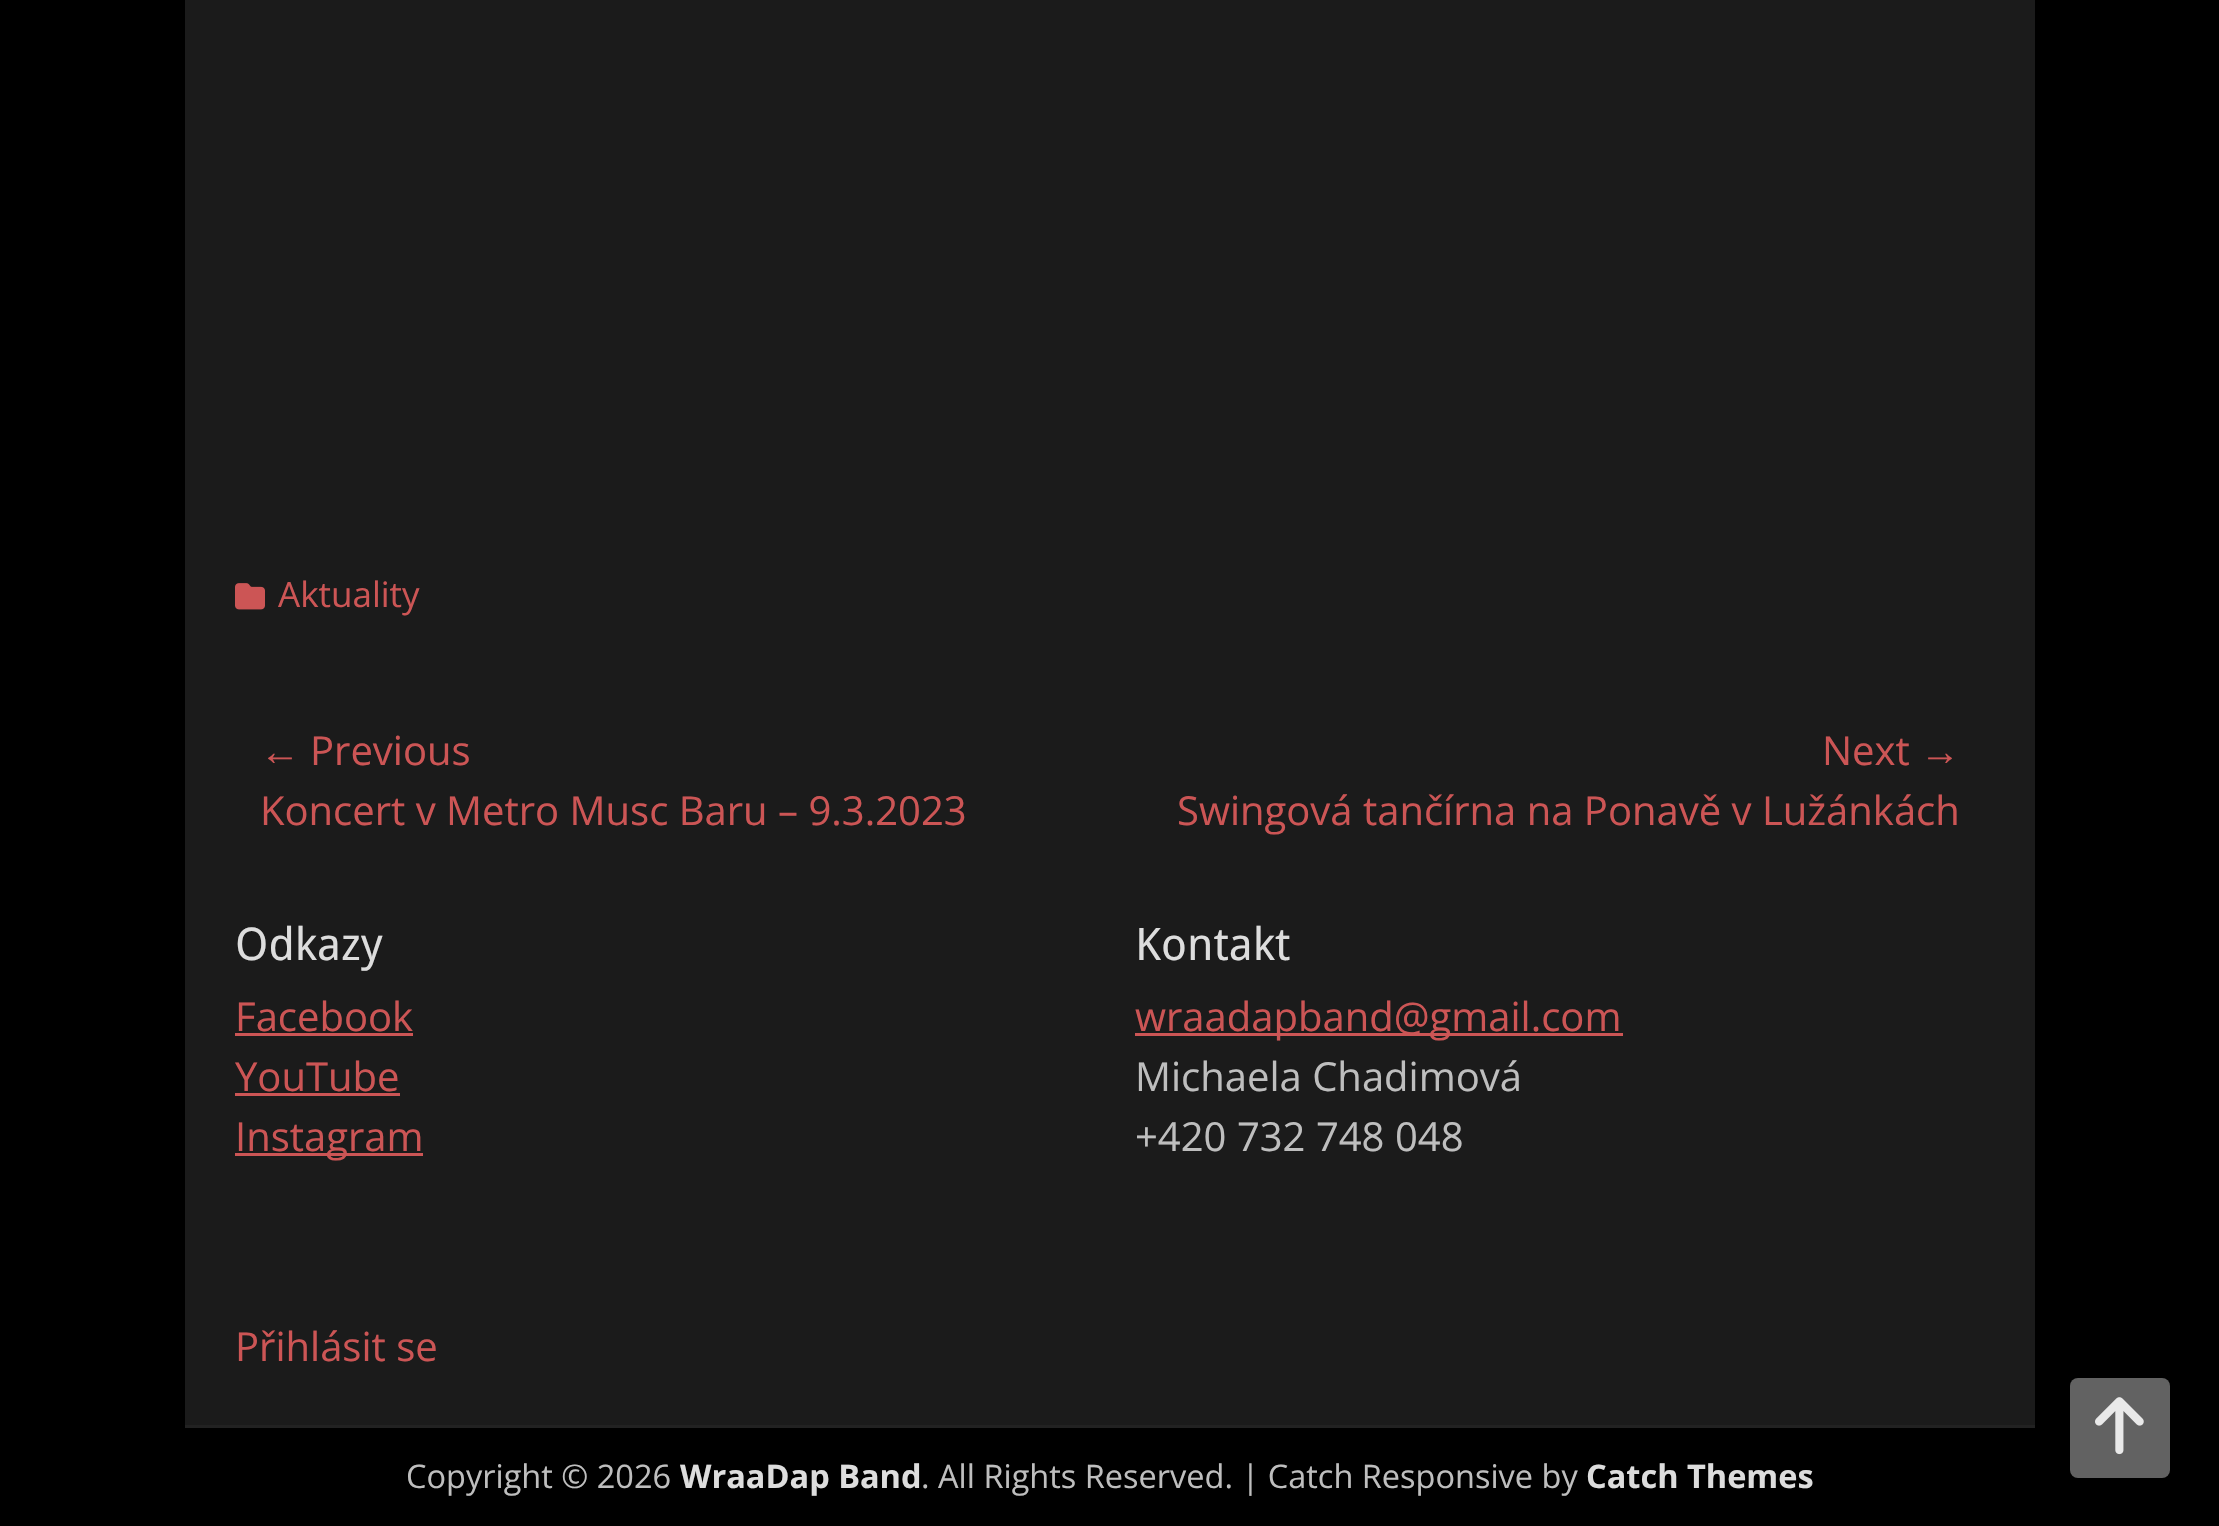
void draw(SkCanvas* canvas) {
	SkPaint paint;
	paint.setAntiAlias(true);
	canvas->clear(0xff000000);
	paint.setColor(0xff1b1b1b);
	canvas->drawRect(SkRect::MakeXYWH(185, 0, 1850, 1425), paint);
	canvas->drawImageRect(SkImages::DeferredFromEncodedData(SkData::MakeFromFileName("img1.png")), SkRect::MakeXYWH(235, 583, 30, 27), SkSamplingOptions());
	SkFont f1(fontMgr->matchFamilyStyle("Open Sans", SkFontStyle::Normal()), 35);
	f1.setSubpixel(true);
	paint.setColor(0xffcc5555);
	canvas->drawString("Aktuality", 278, 607, f1, paint);
	SkFont f2(fontMgr->matchFamilyStyle("Liberation Sans", SkFontStyle::Normal()), 40);
	f2.setSubpixel(true);
	canvas->drawString("←", 260, 765, f2, paint);
	SkFont f3(fontMgr->matchFamilyStyle("Open Sans", SkFontStyle::Normal()), 40);
	f3.setSubpixel(true);
	canvas->drawString("Previous", 310, 765, f3, paint);
	canvas->drawString("Koncert v Metro Musc Baru – 9.3.2023", 260, 825, f3, paint);
	canvas->drawString("Next", 1822, 765, f3, paint);
	canvas->drawString("→", 1920, 765, f2, paint);
	canvas->drawString("Swingová tančírna na Ponavě v Lužánkách", 1177, 825, f3, paint);
	SkFont f4(fontMgr->matchFamilyStyle("Droid Sans", SkFontStyle::Normal()), 45);
	f4.setSubpixel(true);
	paint.setColor(0xffdddddd);
	canvas->drawString("Odkazy", 235, 960, f4, paint);
	paint.setColor(0xffcc5555);
	canvas->drawString("Facebook", 235, 1031, f3, paint);
	canvas->drawRect(SkRect::MakeXYWH(235, 1033, 178, 3), paint);
	canvas->drawString("YouTube", 235, 1091, f3, paint);
	canvas->drawRect(SkRect::MakeXYWH(235, 1093, 165, 3), paint);
	canvas->drawRect(SkRect::MakeXYWH(235, 1153, 188, 3), paint);
	canvas->drawString("Instagram", 235, 1151, f3, paint);
	paint.setColor(0xffdddddd);
	canvas->drawString("Kontakt", 1135, 960, f4, paint);
	paint.setColor(0xffcc5555);
	canvas->drawRect(SkRect::MakeXYWH(1135, 1033, 488, 3), paint);
	canvas->drawString("wraadapband@gmail.com", 1135, 1031, f3, paint);
	paint.setColor(0xffbebebe);
	canvas->drawString("Michaela Chadimová", 1135, 1091, f3, paint);
	canvas->drawString("+420 732 748 048", 1135, 1151, f3, paint);
	paint.setColor(0xffcc5555);
	canvas->drawString("Přihlásit se", 235, 1361, f3, paint);
	paint.setColor(0xff222222);
	canvas->drawRect(SkRect::MakeXYWH(185, 1425, 1850, 3), paint);
	SkFont f5(fontMgr->matchFamilyStyle("Open Sans", SkFontStyle::Normal()), 32.5);
	f5.setSubpixel(true);
	paint.setColor(0xffbebebe);
	canvas->drawString("Copyright © 2026", 406, 1488, f5, paint);
	SkFont f6(fontMgr->matchFamilyStyle("Open Sans", SkFontStyle::Bold()), 32.5);
	f6.setSubpixel(true);
	paint.setColor(0xffdddddd);
	canvas->drawString("WraaDap Band", 680, 1488, f6, paint);
	paint.setColor(0xffbebebe);
	canvas->drawString(". All Rights Reserved. | Catch Responsive by", 921, 1488, f5, paint);
	paint.setColor(0xffdddddd);
	canvas->drawString("Catch Themes", 1586, 1488, f6, paint);
	paint.setColor(0xff626262);
	canvas->drawRoundRect(SkRect::MakeXYWH(2070, 1378, 100, 100), 8, 8, paint);
	canvas->drawImageRect(SkImages::DeferredFromEncodedData(SkData::MakeFromFileName("img2.png")), SkRect::MakeXYWH(2095, 1397, 49, 58), SkSamplingOptions());
}
